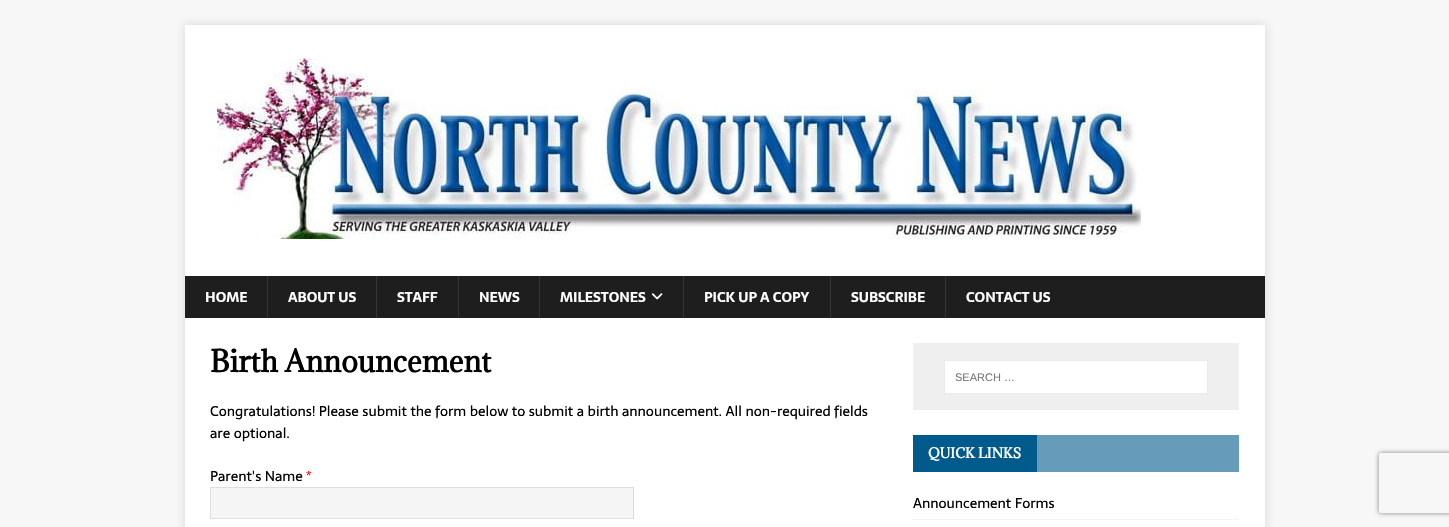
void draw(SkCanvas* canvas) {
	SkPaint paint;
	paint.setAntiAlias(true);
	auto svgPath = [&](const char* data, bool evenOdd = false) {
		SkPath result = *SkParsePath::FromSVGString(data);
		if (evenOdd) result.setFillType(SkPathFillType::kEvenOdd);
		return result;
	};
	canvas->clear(0xfff7f7f7);
	paint.setColor(0x2b323232);
	paint.setMaskFilter(SkMaskFilter::MakeBlur(kNormal_SkBlurStyle, 5));
	canvas->drawRect(SkRect::MakeXYWH(185, 25, 1080, 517), paint);
	paint.setMaskFilter(nullptr);
	paint.setColor(0xffffffff);
	canvas->drawRect(SkRect::MakeXYWH(185, 25, 1080, 251), paint);
	canvas->drawImageRect(SkImages::DeferredFromEncodedData(SkData::MakeFromFileName("img1.png")), SkRect::MakeXYWH(217, 58, 924, 181), SkSamplingOptions());
	paint.setColor(0xff1f1e1e);
	canvas->drawRect(SkRect::MakeXYWH(185, 276, 1080, 42), paint);
	SkFont f1(fontMgr->matchFamilyStyle("Sarala", SkFontStyle::Bold()), 14);
	f1.setSubpixel(true);
	paint.setColor(0xffffffff);
	canvas->drawString("HOME", 205, 302, f1, paint);
	paint.setColor(0xff353535);
	canvas->drawRect(SkRect::MakeXYWH(267, 276, 1, 42), paint);
	paint.setColor(0xffffffff);
	canvas->drawString("ABOUT US", 288, 302, f1, paint);
	paint.setColor(0xff353535);
	canvas->drawRect(SkRect::MakeXYWH(376, 276, 1, 42), paint);
	paint.setColor(0xffffffff);
	canvas->drawString("STAFF", 397, 302, f1, paint);
	paint.setColor(0xff353535);
	canvas->drawRect(SkRect::MakeXYWH(458, 276, 1, 42), paint);
	paint.setColor(0xffffffff);
	canvas->drawString("NEWS", 479, 302, f1, paint);
	paint.setColor(0xff353535);
	canvas->drawRect(SkRect::MakeXYWH(539, 276, 1, 42), paint);
	paint.setColor(0xffffffff);
	canvas->drawString("MILESTONES", 560, 302, f1, paint);
	canvas->drawImageRect(SkImages::DeferredFromEncodedData(SkData::MakeFromFileName("img2.png")), SkRect::MakeXYWH(651, 293, 12, 7), SkSamplingOptions());
	paint.setColor(0xff353535);
	canvas->drawRect(SkRect::MakeXYWH(683, 276, 1, 42), paint);
	paint.setColor(0xffffffff);
	canvas->drawString("PICK UP A COPY", 704, 302, f1, paint);
	paint.setColor(0xff353535);
	canvas->drawRect(SkRect::MakeXYWH(830, 276, 1, 42), paint);
	paint.setColor(0xffffffff);
	canvas->drawString("SUBSCRIBE", 851, 302, f1, paint);
	paint.setColor(0xff353535);
	canvas->drawRect(SkRect::MakeXYWH(945, 276, 1, 42), paint);
	paint.setColor(0xffffffff);
	canvas->drawString("CONTACT US", 966, 302, f1, paint);
	canvas->drawRect(SkRect::MakeXYWH(185, 318, 1080, 209), paint);
	SkFont f2(fontMgr->matchFamilyStyle("Adamina", SkFontStyle::Bold()), 28);
	f2.setSubpixel(true);
	paint.setColor(0xff000000);
	canvas->drawString("Birth Announcement", 210, 372, f2, paint);
	SkFont f3(fontMgr->matchFamilyStyle("Sarala", SkFontStyle::Normal()), 14);
	f3.setSubpixel(true);
	canvas->drawString("Congratulations! Please submit the form below to submit a birth announcement. All non-required fields", 210, 416, f3, paint);
	canvas->drawString("are optional.", 210, 438, f3, paint);
	canvas->drawString("Parent's Name", 210, 481, f3, paint);
	paint.setColor(0xffff0000);
	canvas->drawString("*", 306, 481, f3, paint);
	paint.setColor(0xfff5f5f5);
	canvas->drawRect(SkRect::MakeXYWH(210.5, 487.5, 423, 31), paint);
	paint.setStroke(true);
	paint.setStrokeWidth(1);
	paint.setColor(0xffdddddd);
	canvas->drawRect(SkRect::MakeXYWH(210.5, 487.5, 423, 31), paint);
	paint.setStroke(false);
	paint.setColor(0xffefefef);
	canvas->drawRect(SkRect::MakeXYWH(913, 343, 326, 67), paint);
	paint.setColor(0xffffffff);
	canvas->drawRect(SkRect::MakeXYWH(944.5, 360.5, 263, 33), paint);
	paint.setStroke(true);
	paint.setColor(0xffebebeb);
	canvas->drawRect(SkRect::MakeXYWH(944.5, 360.5, 263, 33), paint);
	SkFont f4(fontMgr->matchFamilyStyle("Liberation Sans", SkFontStyle::Normal()), 11);
	f4.setSubpixel(true);
	paint.setStroke(false);
	paint.setColor(0xff757575);
	canvas->drawString("SEARCH …", 955, 381, f4, paint);
	paint.setColor(0xff669cba);
	canvas->drawRect(SkRect::MakeXYWH(1037, 435, 202, 37), paint);
	paint.setColor(0xff005a8c);
	canvas->drawRect(SkRect::MakeXYWH(913, 435, 124, 37), paint);
	SkFont f5(fontMgr->matchFamilyStyle("Adamina", SkFontStyle::Bold()), 13);
	f5.setSubpixel(true);
	paint.setColor(0xffffffff);
	canvas->drawString("QUICK LINKS", 928, 458, f5, paint);
	paint.setStroke(true);
	paint.setColor(0xffebebeb);
	paint.setPathEffect(SkDashPathEffect::Make({{1, 1}}, 0));
	canvas->drawPath(svgPath("M913 519.5H1239"), paint);
	paint.setPathEffect(nullptr);
	paint.setStroke(false);
	paint.setColor(0xff000000);
	canvas->drawString("Announcement Forms", 913, 508, f3, paint);
	canvas->save();
	canvas->clipPath(svgPath("M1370 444H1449V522H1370ZM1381 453H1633C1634 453 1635 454 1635 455V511C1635 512 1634 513 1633 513H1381C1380 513 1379 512 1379 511V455C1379 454 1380 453 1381 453Z", true), true);
	paint.setColor(0xff808080);
	paint.setMaskFilter(SkMaskFilter::MakeBlur(kNormal_SkBlurStyle, 2.5));
	canvas->drawRoundRect(SkRect::MakeXYWH(1379, 453, 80, 60), 2, 2, paint);
	paint.setMaskFilter(nullptr);
	canvas->restore();
}
